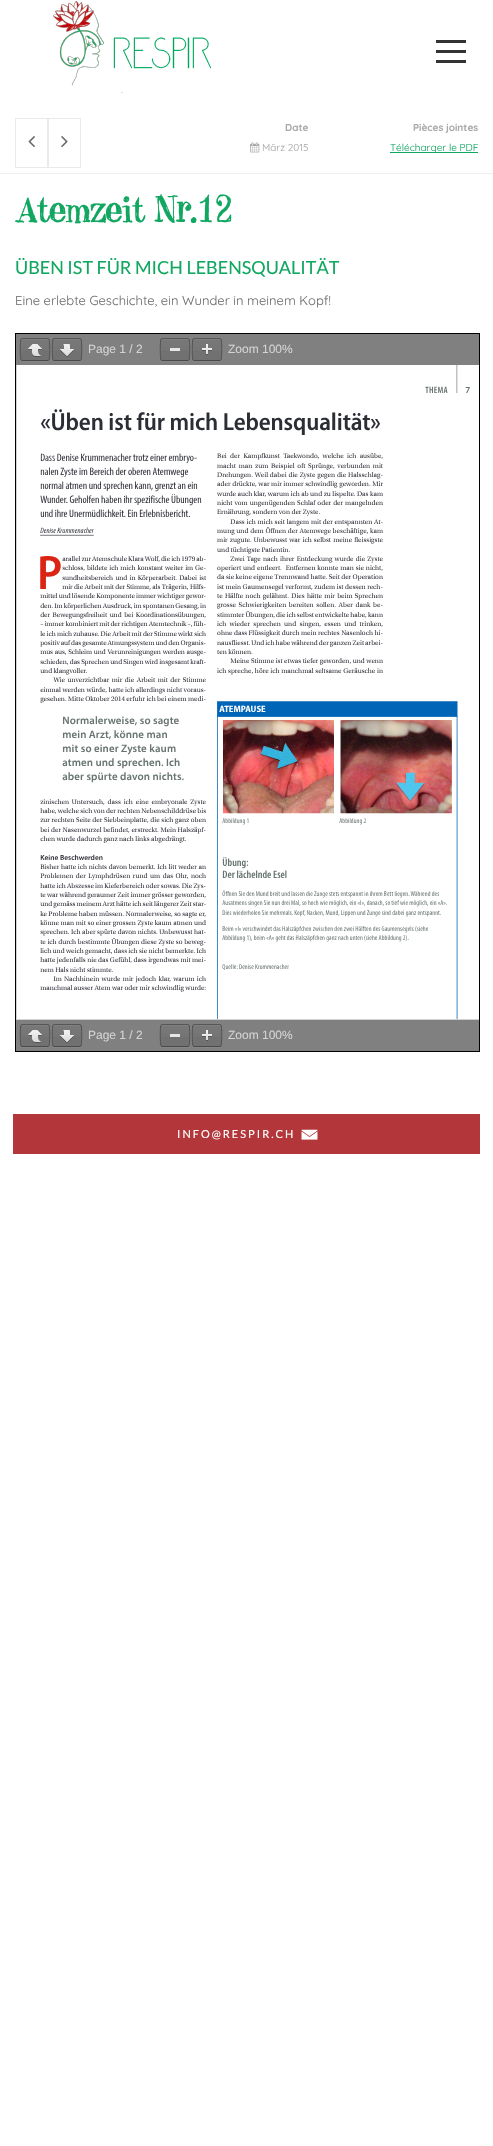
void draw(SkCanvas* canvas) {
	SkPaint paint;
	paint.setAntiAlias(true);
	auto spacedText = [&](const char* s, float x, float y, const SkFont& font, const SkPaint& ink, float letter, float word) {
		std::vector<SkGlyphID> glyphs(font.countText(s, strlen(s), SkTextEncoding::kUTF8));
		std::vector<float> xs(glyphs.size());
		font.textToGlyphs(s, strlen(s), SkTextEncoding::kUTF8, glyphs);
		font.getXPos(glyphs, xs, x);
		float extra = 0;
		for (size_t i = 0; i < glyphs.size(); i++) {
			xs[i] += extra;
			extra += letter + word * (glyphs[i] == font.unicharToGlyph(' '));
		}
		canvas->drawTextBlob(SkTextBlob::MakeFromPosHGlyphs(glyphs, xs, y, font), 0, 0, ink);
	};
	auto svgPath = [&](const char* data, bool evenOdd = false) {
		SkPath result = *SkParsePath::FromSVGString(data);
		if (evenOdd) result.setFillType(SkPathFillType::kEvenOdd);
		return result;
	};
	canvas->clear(0xffffffff);
	canvas->drawImageRect(SkImages::DeferredFromEncodedData(SkData::MakeFromFileName("img1.png")), SkRect::MakeXYWH(45, 1, 167, 92), SkSamplingOptions());
	paint.setColor(0xff333333);
	canvas->drawRect(SkRect::MakeXYWH(436, 40, 30, 3), paint);
	canvas->drawRect(SkRect::MakeXYWH(436, 50, 30, 3), paint);
	canvas->drawRect(SkRect::MakeXYWH(436, 60, 30, 3), paint);
	paint.setStroke(true);
	paint.setStrokeWidth(1);
	paint.setColor(0xffeaeaea);
	canvas->drawRect(SkRect::MakeXYWH(15.5, 118.5, 32, 49), paint);
	canvas->drawImageRect(SkImages::DeferredFromEncodedData(SkData::MakeFromFileName("img2.png")), SkRect::MakeXYWH(28, 136, 7, 12), SkSamplingOptions());
	canvas->drawRect(SkRect::MakeXYWH(48.5, 118.5, 32, 49), paint);
	canvas->drawImageRect(SkImages::DeferredFromEncodedData(SkData::MakeFromFileName("img3.png")), SkRect::MakeXYWH(61, 136, 7, 12), SkSamplingOptions());
	SkFont f1(fontMgr->matchFamilyStyle("Quicksand", SkFontStyle::Bold()), 10);
	f1.setSubpixel(true);
	paint.setStroke(false);
	paint.setColor(0xffa9a9a9);
	canvas->drawString("Date", 285, 131, f1, paint);
	canvas->drawImageRect(SkImages::DeferredFromEncodedData(SkData::MakeFromFileName("img4.png")), SkRect::MakeXYWH(250, 142, 10, 11), SkSamplingOptions());
	SkFont f2(fontMgr->matchFamilyStyle("Quicksand", SkFontStyle::Normal()), 10);
	f2.setSubpixel(true);
	canvas->drawString("März 2015", 262, 151, f2, paint);
	canvas->drawString("Pièces jointes", 413, 131, f1, paint);
	paint.setColor(0xff11a761);
	canvas->drawRect(SkRect::MakeXYWH(390, 152, 88, 1), paint);
	canvas->drawString("Télécharger le PDF", 390, 151, f2, paint);
	paint.setColor(0xffeeeeee);
	canvas->drawRect(SkRect::MakeXYWH(0, 173, 493, 1), paint);
	SkFont f3(fontMgr->matchFamilyStyle("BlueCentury", SkFontStyle::Normal()), 35);
	f3.setSubpixel(true);
	paint.setColor(0xff11a761);
	canvas->drawString("Atemzeit Nr.12", 15, 222, f3, paint);
	SkFont f4(fontMgr->matchFamilyStyle("Lato", SkFontStyle::Normal()), 18);
	f4.setSubpixel(true);
	canvas->drawString("ÜBEN IST FÜR MICH LEBENSQUALITÄT", 15, 274, f4, paint);
	SkFont f5(fontMgr->matchFamilyStyle("Quicksand", SkFontStyle::Normal()), 13);
	f5.setSubpixel(true);
	paint.setColor(0xff707070);
	canvas->drawString("Eine erlebte Geschichte, ein Wunder in meinem Kopf!", 15, 305, f5, paint);
	paint.setColor(0xffd3d3d3);
	canvas->drawRect(SkRect::MakeXYWH(16, 365, 463, 655), paint);
	paint.setStroke(true);
	paint.setColor(0xff000000);
	canvas->drawRect(SkRect::MakeXYWH(15.5, 333.5, 464, 718), paint);
	paint.setStroke(false);
	paint.setColor(0xff808080);
	canvas->drawRect(SkRect::MakeXYWH(16, 334, 463, 31), paint);
	paint.setColor(0xff868686);
	canvas->drawPath(svgPath("M20 359C20 363 22.5 362 26.5 362H43.5C47.5 362 50 363 50 359C50 360 49 361 48 361H22C21 361 20 360 20 359Z"), paint);
	paint.setColor(0xff717171);
	canvas->drawRoundRect(SkRect::MakeXYWH(21, 339, 28, 21), 1, 1, paint);
	{
		const SkColor colors[] = {0x0dffffff, 0x00ffffff};
		const float stops[] = {0, 1};
		const SkPoint ends[] = {{35, 339}, {35, 360}};
		paint.setShader(SkGradientShader::MakeLinear(ends, colors, stops, 2, SkTileMode::kClamp));
		paint.setAlpha(255);
	}
	canvas->drawRect(SkRect::MakeXYWH(21, 339, 28, 12), paint);
	paint.setShader(nullptr);
	paint.setColor(0xff7f7f7f);
	canvas->drawPath(svgPath("M22 340H49V341C49 338 47 339 43.5 339H26.5C23 339 21 338 21 341C21 340 21 340 22 340Z"), paint);
	paint.setStroke(true);
	paint.setColor(0xff575757);
	canvas->drawPath(svgPath("M21 339L22 338.5H48L49 339"), paint);
	paint.setColor(0xff4f4f4f);
	canvas->drawPath(svgPath("M49 339C50 340 50 359 49 360"), paint);
	paint.setColor(0xff4a4a4a);
	canvas->drawPath(svgPath("M49 360L48 360.5H22L21 360"), paint);
	paint.setColor(0xff4f4f4f);
	canvas->drawPath(svgPath("M21 360C20 359 20 340 21 339"), paint);
	canvas->drawImageRect(SkImages::DeferredFromEncodedData(SkData::MakeFromFileName("img5.png")), SkRect::MakeXYWH(28, 344, 14, 13), SkSamplingOptions());
	paint.setStroke(false);
	paint.setColor(0xff868686);
	canvas->drawPath(svgPath("M52 359C52 363 54.5 362 58.5 362H75.5C79.5 362 82 363 82 359C82 360 81 361 80 361H54C53 361 52 360 52 359Z"), paint);
	paint.setColor(0xff717171);
	canvas->drawRoundRect(SkRect::MakeXYWH(53, 339, 28, 21), 1, 1, paint);
	{
		const SkColor colors[] = {0x0dffffff, 0x00ffffff};
		const float stops[] = {0, 1};
		const SkPoint ends[] = {{67, 339}, {67, 360}};
		paint.setShader(SkGradientShader::MakeLinear(ends, colors, stops, 2, SkTileMode::kClamp));
		paint.setAlpha(255);
	}
	canvas->drawRect(SkRect::MakeXYWH(53, 339, 28, 12), paint);
	paint.setShader(nullptr);
	paint.setColor(0xff7f7f7f);
	canvas->drawPath(svgPath("M54 340H81V341C81 338 79 339 75.5 339H58.5C55 339 53 338 53 341C53 340 53 340 54 340Z"), paint);
	paint.setStroke(true);
	paint.setColor(0xff575757);
	canvas->drawPath(svgPath("M53 339L54 338.5H80L81 339"), paint);
	paint.setColor(0xff4f4f4f);
	canvas->drawPath(svgPath("M81 339C82 340 82 359 81 360"), paint);
	paint.setColor(0xff4a4a4a);
	canvas->drawPath(svgPath("M81 360L80 360.5H54L53 360"), paint);
	paint.setColor(0xff4f4f4f);
	canvas->drawPath(svgPath("M53 360C52 359 52 340 53 339"), paint);
	canvas->drawImageRect(SkImages::DeferredFromEncodedData(SkData::MakeFromFileName("img6.png")), SkRect::MakeXYWH(60, 344, 14, 13), SkSamplingOptions());
	SkFont f6(fontMgr->matchFamilyStyle("Liberation Sans", SkFontStyle::Normal()), 12);
	f6.setSubpixel(true);
	paint.setStroke(false);
	paint.setColor(0xffd3d3d3);
	canvas->drawString("Page 1 / 2", 88, 353, f6, paint);
	paint.setColor(0xff868686);
	canvas->drawPath(svgPath("M160 359C160 363 162.5 362 166.5 362H183.5C187.5 362 190 363 190 359C190 360 189 361 188 361H162C161 361 160 360 160 359Z"), paint);
	paint.setColor(0xff717171);
	canvas->drawRoundRect(SkRect::MakeXYWH(161, 339, 28, 21), 1, 1, paint);
	{
		const SkColor colors[] = {0x0dffffff, 0x00ffffff};
		const float stops[] = {0, 1};
		const SkPoint ends[] = {{175, 339}, {175, 360}};
		paint.setShader(SkGradientShader::MakeLinear(ends, colors, stops, 2, SkTileMode::kClamp));
		paint.setAlpha(255);
	}
	canvas->drawRect(SkRect::MakeXYWH(161, 339, 28, 12), paint);
	paint.setShader(nullptr);
	paint.setColor(0xff7f7f7f);
	canvas->drawPath(svgPath("M162 340H189V341C189 338 187 339 183.5 339H166.5C163 339 161 338 161 341C161 340 161 340 162 340Z"), paint);
	paint.setStroke(true);
	paint.setColor(0xff575757);
	canvas->drawPath(svgPath("M161 339L162 338.5H188L189 339"), paint);
	paint.setColor(0xff4f4f4f);
	canvas->drawPath(svgPath("M189 339C190 340 190 359 189 360"), paint);
	paint.setColor(0xff4a4a4a);
	canvas->drawPath(svgPath("M189 360L188 360.5H162L161 360"), paint);
	paint.setColor(0xff4f4f4f);
	canvas->drawPath(svgPath("M161 360C160 359 160 340 161 339"), paint);
	paint.setStroke(false);
	paint.setColor(0xffe6e6e6);
	canvas->drawRect(SkRect::MakeXYWH(170, 348, 10, 3), paint);
	paint.setColor(0xff868686);
	canvas->drawPath(svgPath("M192 359C192 363 194.5 362 198.5 362H215.5C219.5 362 222 363 222 359C222 360 221 361 220 361H194C193 361 192 360 192 359Z"), paint);
	paint.setColor(0xff717171);
	canvas->drawRoundRect(SkRect::MakeXYWH(193, 339, 28, 21), 1, 1, paint);
	{
		const SkColor colors[] = {0x0dffffff, 0x00ffffff};
		const float stops[] = {0, 1};
		const SkPoint ends[] = {{207, 339}, {207, 360}};
		paint.setShader(SkGradientShader::MakeLinear(ends, colors, stops, 2, SkTileMode::kClamp));
		paint.setAlpha(255);
	}
	canvas->drawRect(SkRect::MakeXYWH(193, 339, 28, 12), paint);
	paint.setShader(nullptr);
	paint.setColor(0xff7f7f7f);
	canvas->drawPath(svgPath("M194 340H221V341C221 338 219 339 215.5 339H198.5C195 339 193 338 193 341C193 340 193 340 194 340Z"), paint);
	paint.setStroke(true);
	paint.setColor(0xff575757);
	canvas->drawPath(svgPath("M193 339L194 338.5H220L221 339"), paint);
	paint.setColor(0xff4f4f4f);
	canvas->drawPath(svgPath("M221 339C222 340 222 359 221 360"), paint);
	paint.setColor(0xff4a4a4a);
	canvas->drawPath(svgPath("M221 360L220 360.5H194L193 360"), paint);
	paint.setColor(0xff4f4f4f);
	canvas->drawPath(svgPath("M193 360C192 359 192 340 193 339"), paint);
	canvas->drawImageRect(SkImages::DeferredFromEncodedData(SkData::MakeFromFileName("img7.png")), SkRect::MakeXYWH(202, 344, 10, 11), SkSamplingOptions());
	paint.setStroke(false);
	paint.setColor(0xffd3d3d3);
	canvas->drawString("Zoom 100%", 228, 353, f6, paint);
	paint.setColor(0xffffffff);
	canvas->drawRect(SkRect::MakeXYWH(17, 365, 462, 654), paint);
	canvas->drawImageRect(SkImages::DeferredFromEncodedData(SkData::MakeFromFileName("img8.png")), SkRect::MakeXYWH(40, 365, 430, 654), SkSamplingOptions());
	paint.setColor(0xff808080);
	canvas->drawRect(SkRect::MakeXYWH(16, 1020, 463, 31), paint);
	paint.setColor(0xff868686);
	canvas->drawPath(svgPath("M20 1045C20 1049 22.5 1048 26.5 1048H43.5C47.5 1048 50 1049 50 1045C50 1046 49 1047 48 1047H22C21 1047 20 1046 20 1045Z"), paint);
	paint.setColor(0xff717171);
	canvas->drawRoundRect(SkRect::MakeXYWH(21, 1025, 28, 21), 1, 1, paint);
	{
		const SkColor colors[] = {0x0dffffff, 0x00ffffff};
		const float stops[] = {0, 1};
		const SkPoint ends[] = {{35, 1025}, {35, 1046}};
		paint.setShader(SkGradientShader::MakeLinear(ends, colors, stops, 2, SkTileMode::kClamp));
		paint.setAlpha(255);
	}
	canvas->drawRect(SkRect::MakeXYWH(21, 1025, 28, 12), paint);
	paint.setShader(nullptr);
	paint.setColor(0xff7f7f7f);
	canvas->drawPath(svgPath("M22 1026H49V1027C49 1024 47 1025 43.5 1025H26.5C23 1025 21 1024 21 1027C21 1026 21 1026 22 1026Z"), paint);
	paint.setStroke(true);
	paint.setColor(0xff575757);
	canvas->drawPath(svgPath("M21 1025L22 1024.5H48L49 1025"), paint);
	paint.setColor(0xff4f4f4f);
	canvas->drawPath(svgPath("M49 1025C50 1026 50 1045 49 1046"), paint);
	paint.setColor(0xff4a4a4a);
	canvas->drawPath(svgPath("M49 1046L48 1046.5H22L21 1046"), paint);
	paint.setColor(0xff4f4f4f);
	canvas->drawPath(svgPath("M21 1046C20 1045 20 1026 21 1025"), paint);
	canvas->drawImageRect(SkImages::DeferredFromEncodedData(SkData::MakeFromFileName("img5.png")), SkRect::MakeXYWH(28, 1030, 14, 13), SkSamplingOptions());
	paint.setStroke(false);
	paint.setColor(0xff868686);
	canvas->drawPath(svgPath("M52 1045C52 1049 54.5 1048 58.5 1048H75.5C79.5 1048 82 1049 82 1045C82 1046 81 1047 80 1047H54C53 1047 52 1046 52 1045Z"), paint);
	paint.setColor(0xff717171);
	canvas->drawRoundRect(SkRect::MakeXYWH(53, 1025, 28, 21), 1, 1, paint);
	{
		const SkColor colors[] = {0x0dffffff, 0x00ffffff};
		const float stops[] = {0, 1};
		const SkPoint ends[] = {{67, 1025}, {67, 1046}};
		paint.setShader(SkGradientShader::MakeLinear(ends, colors, stops, 2, SkTileMode::kClamp));
		paint.setAlpha(255);
	}
	canvas->drawRect(SkRect::MakeXYWH(53, 1025, 28, 12), paint);
	paint.setShader(nullptr);
	paint.setColor(0xff7f7f7f);
	canvas->drawPath(svgPath("M54 1026H81V1027C81 1024 79 1025 75.5 1025H58.5C55 1025 53 1024 53 1027C53 1026 53 1026 54 1026Z"), paint);
	paint.setStroke(true);
	paint.setColor(0xff575757);
	canvas->drawPath(svgPath("M53 1025L54 1024.5H80L81 1025"), paint);
	paint.setColor(0xff4f4f4f);
	canvas->drawPath(svgPath("M81 1025C82 1026 82 1045 81 1046"), paint);
	paint.setColor(0xff4a4a4a);
	canvas->drawPath(svgPath("M81 1046L80 1046.5H54L53 1046"), paint);
	paint.setColor(0xff4f4f4f);
	canvas->drawPath(svgPath("M53 1046C52 1045 52 1026 53 1025"), paint);
	canvas->drawImageRect(SkImages::DeferredFromEncodedData(SkData::MakeFromFileName("img6.png")), SkRect::MakeXYWH(60, 1030, 14, 13), SkSamplingOptions());
	paint.setStroke(false);
	paint.setColor(0xffd3d3d3);
	canvas->drawString("Page 1 / 2", 88, 1039, f6, paint);
	paint.setColor(0xff868686);
	canvas->drawPath(svgPath("M160 1045C160 1049 162.5 1048 166.5 1048H183.5C187.5 1048 190 1049 190 1045C190 1046 189 1047 188 1047H162C161 1047 160 1046 160 1045Z"), paint);
	paint.setColor(0xff717171);
	canvas->drawRoundRect(SkRect::MakeXYWH(161, 1025, 28, 21), 1, 1, paint);
	{
		const SkColor colors[] = {0x0dffffff, 0x00ffffff};
		const float stops[] = {0, 1};
		const SkPoint ends[] = {{175, 1025}, {175, 1046}};
		paint.setShader(SkGradientShader::MakeLinear(ends, colors, stops, 2, SkTileMode::kClamp));
		paint.setAlpha(255);
	}
	canvas->drawRect(SkRect::MakeXYWH(161, 1025, 28, 12), paint);
	paint.setShader(nullptr);
	paint.setColor(0xff7f7f7f);
	canvas->drawPath(svgPath("M162 1026H189V1027C189 1024 187 1025 183.5 1025H166.5C163 1025 161 1024 161 1027C161 1026 161 1026 162 1026Z"), paint);
	paint.setStroke(true);
	paint.setColor(0xff575757);
	canvas->drawPath(svgPath("M161 1025L162 1024.5H188L189 1025"), paint);
	paint.setColor(0xff4f4f4f);
	canvas->drawPath(svgPath("M189 1025C190 1026 190 1045 189 1046"), paint);
	paint.setColor(0xff4a4a4a);
	canvas->drawPath(svgPath("M189 1046L188 1046.5H162L161 1046"), paint);
	paint.setColor(0xff4f4f4f);
	canvas->drawPath(svgPath("M161 1046C160 1045 160 1026 161 1025"), paint);
	paint.setStroke(false);
	paint.setColor(0xffe6e6e6);
	canvas->drawRect(SkRect::MakeXYWH(170, 1034, 10, 3), paint);
	paint.setColor(0xff868686);
	canvas->drawPath(svgPath("M192 1045C192 1049 194.5 1048 198.5 1048H215.5C219.5 1048 222 1049 222 1045C222 1046 221 1047 220 1047H194C193 1047 192 1046 192 1045Z"), paint);
	paint.setColor(0xff717171);
	canvas->drawRoundRect(SkRect::MakeXYWH(193, 1025, 28, 21), 1, 1, paint);
	{
		const SkColor colors[] = {0x0dffffff, 0x00ffffff};
		const float stops[] = {0, 1};
		const SkPoint ends[] = {{207, 1025}, {207, 1046}};
		paint.setShader(SkGradientShader::MakeLinear(ends, colors, stops, 2, SkTileMode::kClamp));
		paint.setAlpha(255);
	}
	canvas->drawRect(SkRect::MakeXYWH(193, 1025, 28, 12), paint);
	paint.setShader(nullptr);
	paint.setColor(0xff7f7f7f);
	canvas->drawPath(svgPath("M194 1026H221V1027C221 1024 219 1025 215.5 1025H198.5C195 1025 193 1024 193 1027C193 1026 193 1026 194 1026Z"), paint);
	paint.setStroke(true);
	paint.setColor(0xff575757);
	canvas->drawPath(svgPath("M193 1025L194 1024.5H220L221 1025"), paint);
	paint.setColor(0xff4f4f4f);
	canvas->drawPath(svgPath("M221 1025C222 1026 222 1045 221 1046"), paint);
	paint.setColor(0xff4a4a4a);
	canvas->drawPath(svgPath("M221 1046L220 1046.5H194L193 1046"), paint);
	paint.setColor(0xff4f4f4f);
	canvas->drawPath(svgPath("M193 1046C192 1045 192 1026 193 1025"), paint);
	canvas->drawImageRect(SkImages::DeferredFromEncodedData(SkData::MakeFromFileName("img7.png")), SkRect::MakeXYWH(202, 1030, 10, 11), SkSamplingOptions());
	paint.setStroke(false);
	paint.setColor(0xffd3d3d3);
	canvas->drawString("Zoom 100%", 228, 1039, f6, paint);
	paint.setColor(0xffb2363a);
	canvas->drawRect(SkRect::MakeXYWH(13, 1114, 467, 40), paint);
	SkFont f7(fontMgr->matchFamilyStyle("Lato", SkFontStyle::Normal()), 11);
	f7.setSubpixel(true);
	paint.setColor(0xffffffff);
	spacedText("INFO@RESPIR.CH", 177, 1138, f7, paint, 2, 0);
	canvas->drawImageRect(SkImages::DeferredFromEncodedData(SkData::MakeFromFileName("img9.png")), SkRect::MakeXYWH(301, 1129, 17, 11), SkSamplingOptions());
}
